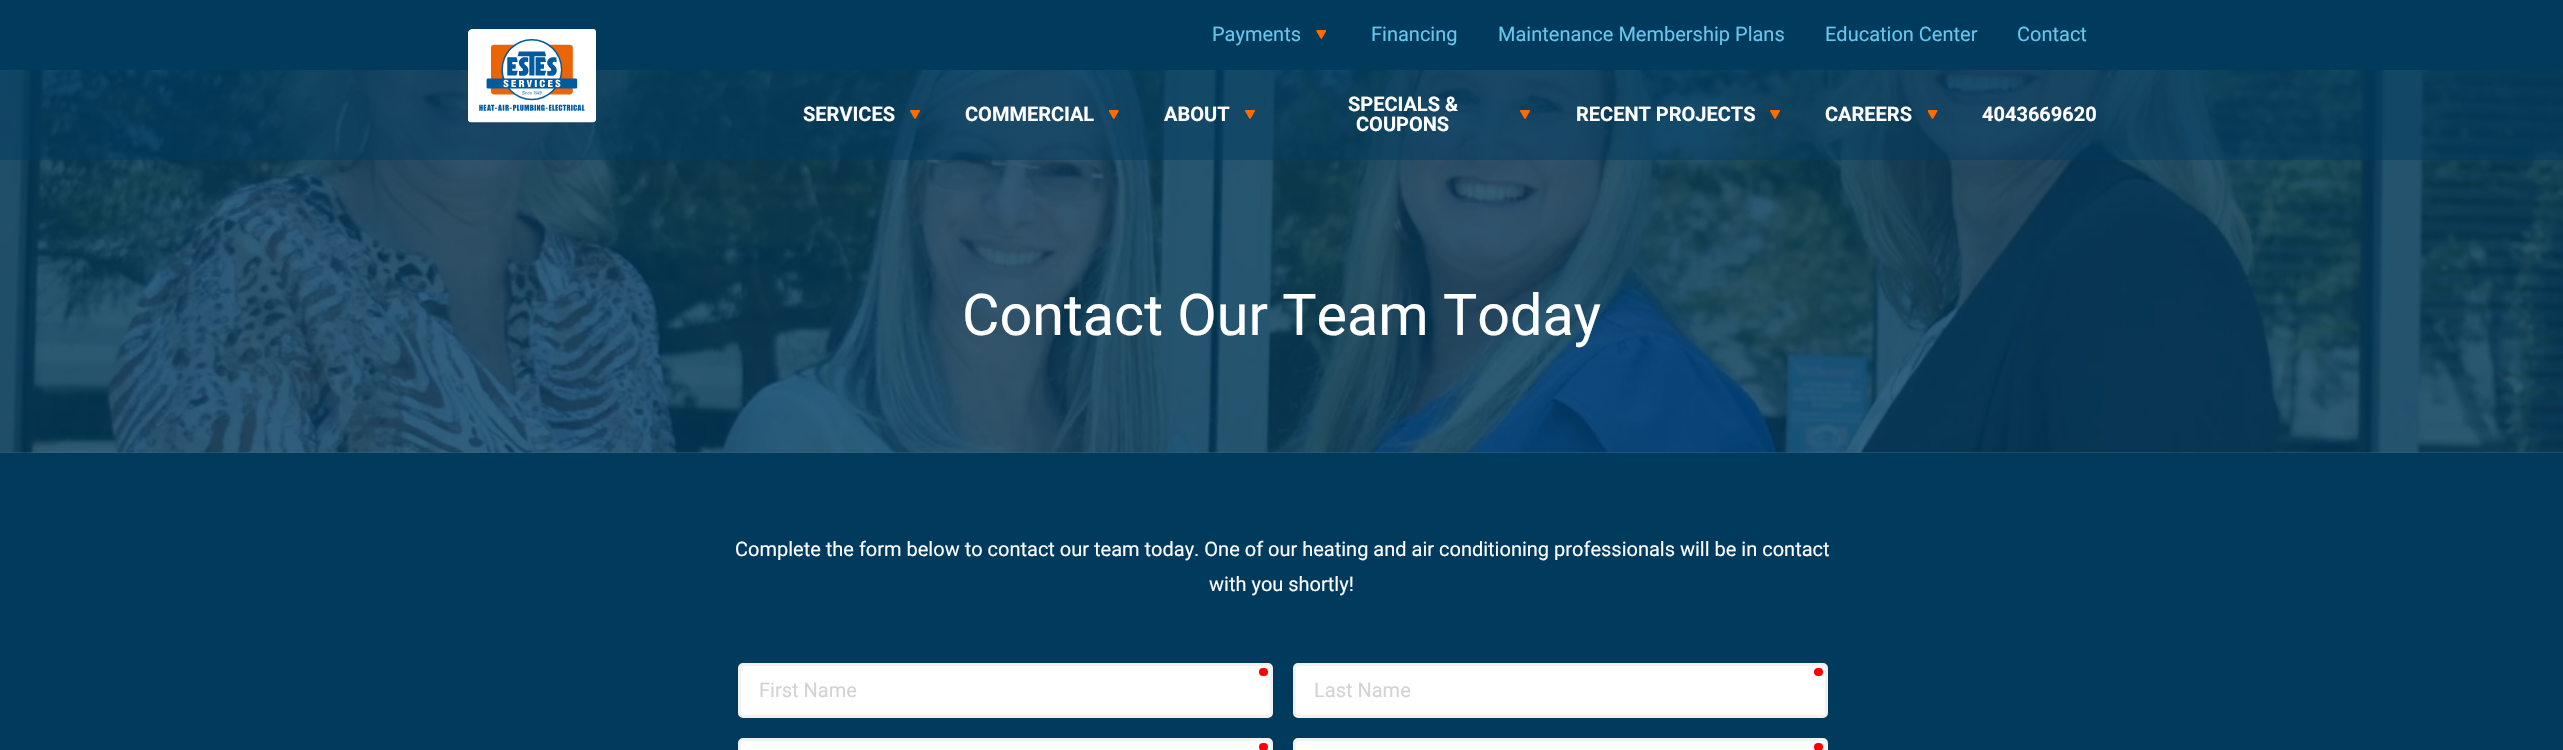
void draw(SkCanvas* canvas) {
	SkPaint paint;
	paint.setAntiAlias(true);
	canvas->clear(0xff33617d);
	canvas->drawImageRect(SkImages::DeferredFromEncodedData(SkData::MakeFromFileName("img9.png")), SkRect::MakeXYWH(0, 70, 2563, 383), SkSamplingOptions());
	paint.setColor(0x80003a5d);
	canvas->drawRect(SkRect::MakeXYWH(0, 70, 2563, 90), paint);
	paint.setColor(0xff003a5d);
	canvas->drawRect(SkRect::MakeXYWH(0, 0, 2563, 70), paint);
	canvas->drawImageRect(SkImages::DeferredFromEncodedData(SkData::MakeFromFileName("img1.png")), SkRect::MakeXYWH(468, 29, 128, 94), SkSamplingOptions());
	SkFont f1(fontMgr->matchFamilyStyle("Roboto", SkFontStyle::Normal()), 20);
	f1.setSubpixel(true);
	paint.setColor(0xff66c6ec);
	canvas->drawString("Payments", 1212, 41, f1, paint);
	canvas->drawImageRect(SkImages::DeferredFromEncodedData(SkData::MakeFromFileName("img2.png")), SkRect::MakeXYWH(1316, 30, 10, 9), SkSamplingOptions());
	canvas->drawString("Financing", 1371, 41, f1, paint);
	canvas->drawString("Maintenance Membership Plans", 1498, 41, f1, paint);
	canvas->drawString("Education Center", 1825, 41, f1, paint);
	canvas->drawString("Contact", 2017, 41, f1, paint);
	SkFont f2(fontMgr->matchFamilyStyle("Roboto", SkFontStyle::Bold()), 20);
	f2.setSubpixel(true);
	paint.setColor(0xffffffff);
	canvas->drawString("SERVICES", 803, 121, f2, paint);
	canvas->drawImageRect(SkImages::DeferredFromEncodedData(SkData::MakeFromFileName("img3.png")), SkRect::MakeXYWH(910, 110, 10, 9), SkSamplingOptions());
	canvas->drawString("COMMERCIAL", 965, 121, f2, paint);
	canvas->drawImageRect(SkImages::DeferredFromEncodedData(SkData::MakeFromFileName("img4.png")), SkRect::MakeXYWH(1109, 110, 10, 9), SkSamplingOptions());
	canvas->drawString("ABOUT", 1164, 121, f2, paint);
	canvas->drawImageRect(SkImages::DeferredFromEncodedData(SkData::MakeFromFileName("img5.png")), SkRect::MakeXYWH(1245, 110, 10, 9), SkSamplingOptions());
	canvas->drawString("SPECIALS &", 1348, 111, f2, paint);
	canvas->drawString("COUPONS", 1356, 131, f2, paint);
	canvas->drawImageRect(SkImages::DeferredFromEncodedData(SkData::MakeFromFileName("img6.png")), SkRect::MakeXYWH(1520, 110, 10, 9), SkSamplingOptions());
	canvas->drawString("RECENT PROJECTS", 1576, 121, f2, paint);
	canvas->drawImageRect(SkImages::DeferredFromEncodedData(SkData::MakeFromFileName("img7.png")), SkRect::MakeXYWH(1770, 110, 10, 9), SkSamplingOptions());
	canvas->drawString("CAREERS", 1825, 121, f2, paint);
	canvas->drawImageRect(SkImages::DeferredFromEncodedData(SkData::MakeFromFileName("img8.png")), SkRect::MakeXYWH(1928, 110, 10, 9), SkSamplingOptions());
	canvas->drawString("4043669620", 1982, 121, f2, paint);
	SkFont f3(fontMgr->matchFamilyStyle("Roboto", SkFontStyle::Normal()), 57.5);
	f3.setSubpixel(true);
	canvas->drawString("Contact Our Team Today", 962, 335, f3, paint);
	paint.setColor(0xff003a5d);
	canvas->drawRect(SkRect::MakeXYWH(0, 453, 2563, 297), paint);
	paint.setColor(0xffffffff);
	canvas->drawString("Complete the form below to contact our team today. One of our heating and air conditioning professionals will be in contact", 735, 556, f1, paint);
	canvas->drawString("with you shortly!", 1209, 591, f1, paint);
	canvas->drawRoundRect(SkRect::MakeXYWH(739.5, 664.5, 532, 52), 3.5, 3.5, paint);
	paint.setStroke(true);
	paint.setStrokeWidth(3);
	paint.setColor(0xfff2f2f2);
	canvas->drawRoundRect(SkRect::MakeXYWH(739.5, 664.5, 532, 52), 3.5, 3.5, paint);
	paint.setStroke(false);
	paint.setColor(0xffff0000);
	canvas->drawRoundRect(SkRect::MakeXYWH(1259, 668, 9, 8), 4, 4, paint);
	paint.setColor(0xffd3d3d3);
	canvas->drawString("First Name", 759, 697, f1, paint);
	paint.setColor(0xffffffff);
	canvas->drawRoundRect(SkRect::MakeXYWH(1294.5, 664.5, 532, 52), 3.5, 3.5, paint);
	paint.setStroke(true);
	paint.setColor(0xfff2f2f2);
	canvas->drawRoundRect(SkRect::MakeXYWH(1294.5, 664.5, 532, 52), 3.5, 3.5, paint);
	paint.setStroke(false);
	paint.setColor(0xffff0000);
	canvas->drawRoundRect(SkRect::MakeXYWH(1814, 668, 9, 8), 4, 4, paint);
	paint.setColor(0xffd3d3d3);
	canvas->drawString("Last Name", 1314, 697, f1, paint);
	paint.setColor(0xffffffff);
	canvas->drawRoundRect(SkRect::MakeXYWH(739.5, 739.5, 532, 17), 3.5, 3.5, paint);
	paint.setStroke(true);
	paint.setColor(0xfff2f2f2);
	canvas->drawRoundRect(SkRect::MakeXYWH(739.5, 739.5, 532, 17), 3.5, 3.5, paint);
	paint.setStroke(false);
	paint.setColor(0xffff0000);
	canvas->drawRoundRect(SkRect::MakeXYWH(1259, 743, 9, 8), 4, 4, paint);
	paint.setColor(0xffffffff);
	canvas->drawRoundRect(SkRect::MakeXYWH(1294.5, 739.5, 532, 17), 3.5, 3.5, paint);
	paint.setStroke(true);
	paint.setColor(0xfff2f2f2);
	canvas->drawRoundRect(SkRect::MakeXYWH(1294.5, 739.5, 532, 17), 3.5, 3.5, paint);
	paint.setStroke(false);
	paint.setColor(0xffff0000);
	canvas->drawRoundRect(SkRect::MakeXYWH(1814, 743, 9, 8), 4, 4, paint);
}
